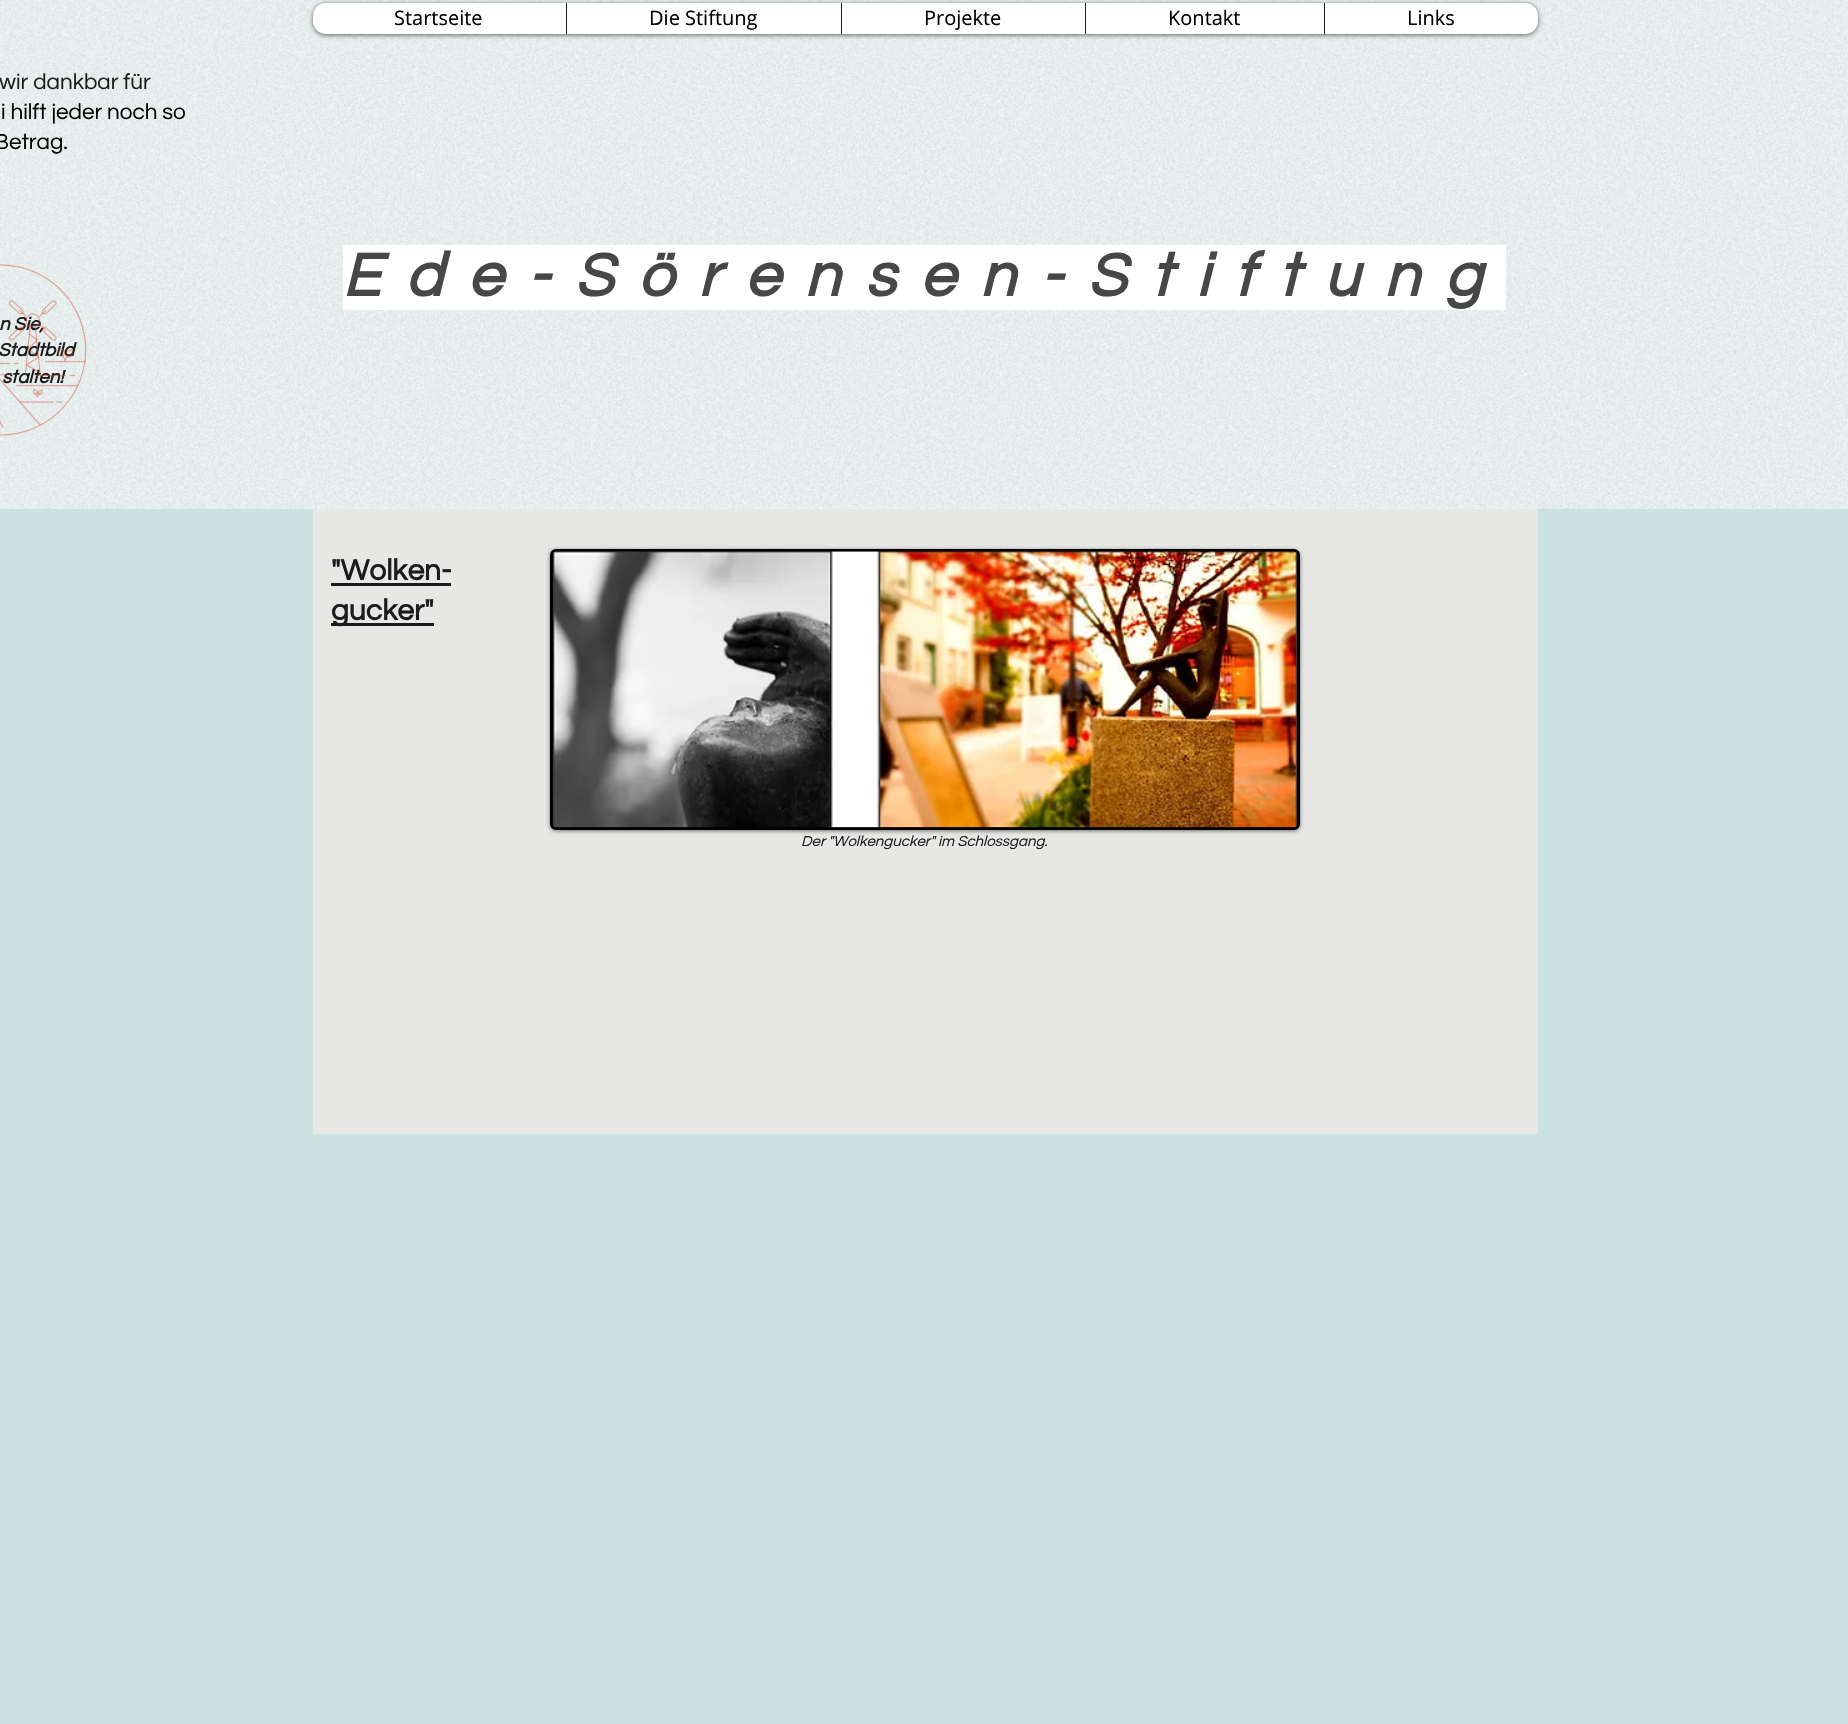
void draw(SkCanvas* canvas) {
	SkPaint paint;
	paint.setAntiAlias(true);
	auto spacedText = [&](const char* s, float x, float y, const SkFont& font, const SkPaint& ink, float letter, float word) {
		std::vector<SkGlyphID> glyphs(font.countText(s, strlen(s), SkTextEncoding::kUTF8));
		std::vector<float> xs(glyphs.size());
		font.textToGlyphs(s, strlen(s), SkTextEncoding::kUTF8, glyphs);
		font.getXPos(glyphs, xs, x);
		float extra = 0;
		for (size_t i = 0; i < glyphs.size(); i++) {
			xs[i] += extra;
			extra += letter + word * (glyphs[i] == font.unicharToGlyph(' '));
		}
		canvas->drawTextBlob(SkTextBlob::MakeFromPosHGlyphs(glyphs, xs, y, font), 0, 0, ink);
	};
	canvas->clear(0xffcce2e2);
	paint.setColor(0xffedf4f4);
	canvas->drawRect(SkRect::MakeXYWH(0, 0, 1848, 509), paint);
	canvas->drawImageRect(SkImages::DeferredFromEncodedData(SkData::MakeFromFileName("img1.png")), SkRect::MakeXYWH(0, 0, 1848, 509), SkSamplingOptions());
	paint.setColor(0x99000000);
	paint.setMaskFilter(SkMaskFilter::MakeBlur(kNormal_SkBlurStyle, 2.5));
	canvas->drawRoundRect(SkRect::MakeXYWH(313, 4, 1225, 31), 13, 13, paint);
	paint.setMaskFilter(nullptr);
	paint.setColor(0xffffffff);
	canvas->drawRoundRect(SkRect::MakeXYWH(313, 3, 1225, 31), 13, 13, paint);
	SkFont f1(fontMgr->matchFamilyStyle("Open Sans", SkFontStyle::Normal()), 20);
	f1.setSubpixel(true);
	paint.setColor(0xff000000);
	canvas->drawString("Startseite", 394, 25, f1, paint);
	paint.setColor(0xff1c1c1c);
	canvas->drawRect(SkRect::MakeXYWH(566, 3, 1, 31), paint);
	paint.setColor(0xff000000);
	canvas->drawString("Die Stiftung", 649, 25, f1, paint);
	paint.setColor(0xff1c1c1c);
	canvas->drawRect(SkRect::MakeXYWH(841, 3, 1, 31), paint);
	paint.setColor(0xff000000);
	canvas->drawString("Projekte", 924, 25, f1, paint);
	paint.setColor(0xff1c1c1c);
	canvas->drawRect(SkRect::MakeXYWH(1085, 3, 1, 31), paint);
	paint.setColor(0xff000000);
	canvas->drawString("Kontakt", 1168, 25, f1, paint);
	paint.setColor(0xff1c1c1c);
	canvas->drawRect(SkRect::MakeXYWH(1324, 3, 1, 31), paint);
	paint.setColor(0xff000000);
	canvas->drawString("Links", 1407, 25, f1, paint);
	SkFont f2(fontMgr->matchFamilyStyle("Questrial", SkFontStyle::Normal()), 22.5);
	f2.setSubpixel(true);
	paint.setColor(0xff1c1c1c);
	canvas->drawString("wir dankbar für", -1, 89, f2, paint);
	paint.setColor(0xff000000);
	canvas->drawString("i hilft jeder noch so", 1, 119, f2, paint);
	canvas->drawString("Betrag.", -6, 149, f2, paint);
	SkFont f3(fontMgr->matchFamilyStyle("Questrial", SkFontStyle::BoldItalic()), 18.75);
	f3.setSubpixel(true);
	paint.setColor(0xff1c1c1c);
	canvas->drawString("n Sie,", -1, 330, f3, paint);
	canvas->drawString("Stadtbild", -2, 356, f3, paint);
	canvas->drawString("stalten!", 2, 383, f3, paint);
	canvas->drawImageRect(SkImages::DeferredFromEncodedData(SkData::MakeFromFileName("img2.png")), SkRect::MakeXYWH(0, 264, 87, 172), SkSamplingOptions());
	paint.setColor(0xffffffff);
	canvas->drawRect(SkRect::MakeXYWH(343, 245, 1163, 65), paint);
	SkFont f4(fontMgr->matchFamilyStyle("Questrial", SkFontStyle::BoldItalic()), 62.5);
	f4.setSubpixel(true);
	paint.setColor(0xff474747);
	spacedText("Ede-Sörensen-Stiftung", 342, 296, f4, paint, 25, 0);
	paint.setColor(0xffe7e8e6);
	canvas->drawRect(SkRect::MakeXYWH(313, 509, 1225, 625), paint);
	SkFont f5(fontMgr->matchFamilyStyle("Questrial", SkFontStyle::Bold()), 30);
	f5.setSubpixel(true);
	paint.setColor(0xff1c1c1c);
	canvas->drawString("\"Wolken-", 331, 580, f5, paint);
	canvas->drawRect(SkRect::MakeXYWH(331, 583, 120, 3), paint);
	canvas->drawRect(SkRect::MakeXYWH(331, 623, 103, 3), paint);
	canvas->drawString("gucker\"", 331, 620, f5, paint);
	paint.setColor(0x80000000);
	paint.setMaskFilter(SkMaskFilter::MakeBlur(kNormal_SkBlurStyle, 2));
	canvas->drawRoundRect(SkRect::MakeXYWH(550, 550, 750, 281), 6, 6, paint);
	paint.setMaskFilter(nullptr);
	paint.setStroke(true);
	paint.setStrokeWidth(3);
	paint.setColor(0xff000000);
	canvas->drawRoundRect(SkRect::MakeXYWH(551.5, 550.5, 747, 278), 4.5, 4.5, paint);
	canvas->drawImageRect(SkImages::DeferredFromEncodedData(SkData::MakeFromFileName("img3.png")), SkRect::MakeXYWH(552, 551, 746, 277), SkSamplingOptions());
	SkFont f6(fontMgr->matchFamilyStyle("Questrial", SkFontStyle::Italic()), 15);
	f6.setSubpixel(true);
	paint.setStroke(false);
	paint.setColor(0xff1c1c1c);
	canvas->drawString("Der \"Wolkengucker\" im Schlossgang.", 801, 846, f6, paint);
}
